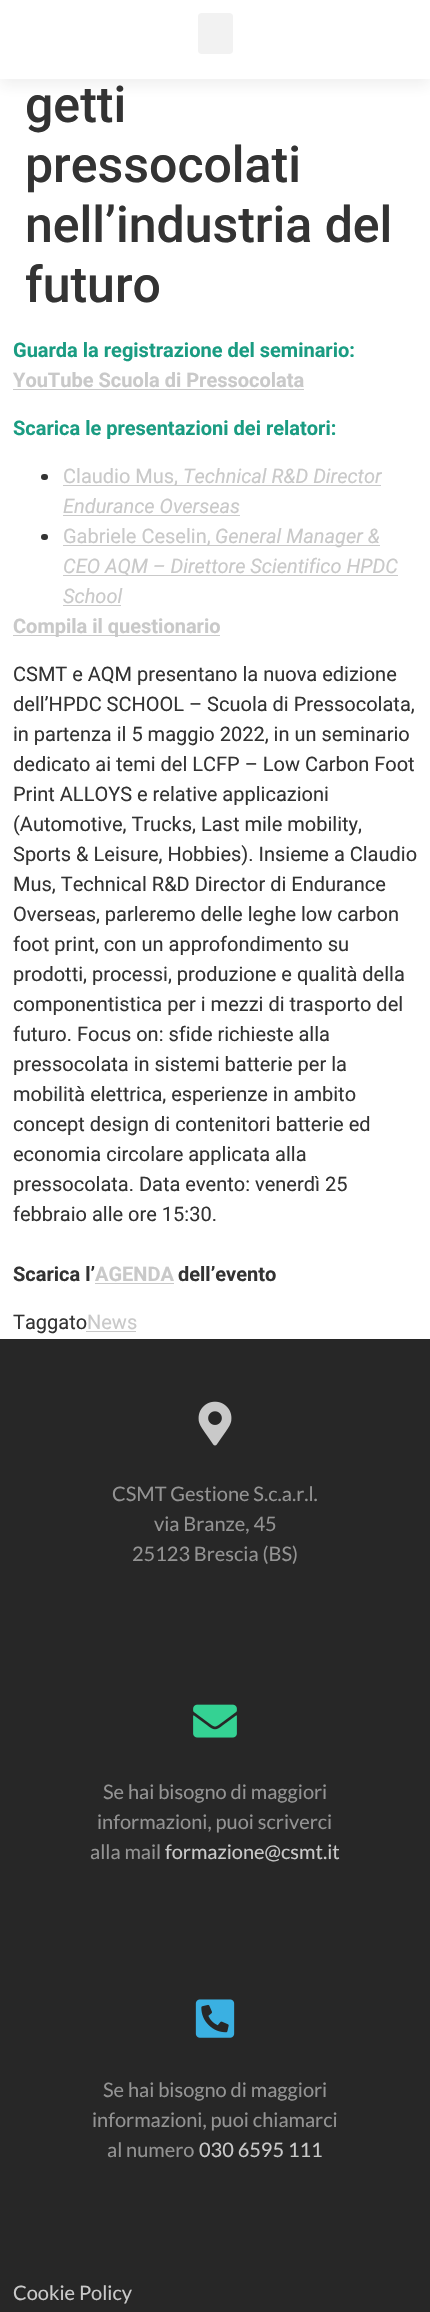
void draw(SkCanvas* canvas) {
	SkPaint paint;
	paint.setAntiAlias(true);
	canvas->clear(0xffffffff);
	paint.setColor(0x14323232);
	paint.setMaskFilter(SkMaskFilter::MakeBlur(kNormal_SkBlurStyle, 7));
	canvas->drawRect(SkRect::MakeXYWH(0, 6, 430, 79), paint);
	paint.setMaskFilter(nullptr);
	paint.setColor(0xffffffff);
	canvas->drawRect(SkRect::MakeXYWH(0, 0, 430, 79), paint);
	paint.setColor(0xfff2f2f2);
	canvas->drawRoundRect(SkRect::MakeXYWH(198, 13, 35, 41), 4, 4, paint);
	SkFont f1(fontMgr->matchFamilyStyle("Roboto", SkFontStyle(500, SkFontStyle::kNormal_Width, SkFontStyle::kUpright_Slant)), 50);
	f1.setSubpixel(true);
	paint.setColor(0xff333333);
	canvas->drawString("getti", 25, 122, f1, paint);
	canvas->drawString("pressocolati", 25, 182, f1, paint);
	canvas->drawString("nell’industria del", 25, 242, f1, paint);
	canvas->drawString("futuro", 25, 302, f1, paint);
	SkFont f2(fontMgr->matchFamilyStyle("Roboto", SkFontStyle::Bold()), 20);
	f2.setSubpixel(true);
	paint.setColor(0xff1a9c82);
	canvas->drawString("Guarda la registrazione del seminario:", 13, 357, f2, paint);
	paint.setColor(0xffc9c9c9);
	canvas->drawString("YouTube Scuola di Pressocolata", 13, 387, f2, paint);
	canvas->drawRect(SkRect::MakeXYWH(13, 389, 291, 1), paint);
	paint.setColor(0xff1a9c82);
	canvas->drawString("Scarica le presentazioni dei relatori:", 13, 435, f2, paint);
	paint.setColor(0xff333333);
	canvas->drawRoundRect(SkRect::MakeXYWH(41, 474, 7, 6), 3, 3, paint);
	paint.setColor(0xffc9c9c9);
	canvas->drawRect(SkRect::MakeXYWH(63, 485, 318, 1), paint);
	SkFont f3(fontMgr->matchFamilyStyle("Roboto", SkFontStyle::Normal()), 20);
	f3.setSubpixel(true);
	canvas->drawString("Claudio Mus,", 63, 483, f3, paint);
	SkFont f4(fontMgr->matchFamilyStyle("Roboto", SkFontStyle::Italic()), 20);
	f4.setSubpixel(true);
	canvas->drawString("Technical R&D Director", 183, 483, f4, paint);
	canvas->drawString("Endurance Overseas", 63, 513, f4, paint);
	canvas->drawRect(SkRect::MakeXYWH(63, 515, 177, 1), paint);
	paint.setColor(0xff333333);
	canvas->drawRoundRect(SkRect::MakeXYWH(41, 534, 7, 6), 3, 3, paint);
	paint.setColor(0xffc9c9c9);
	canvas->drawRect(SkRect::MakeXYWH(63, 545, 317, 1), paint);
	canvas->drawString("Gabriele Ceselin,", 63, 543, f3, paint);
	canvas->drawString("General Manager &", 215, 543, f4, paint);
	canvas->drawRect(SkRect::MakeXYWH(63, 575, 335, 1), paint);
	canvas->drawString("CEO AQM – Direttore Scientifico HPDC", 63, 573, f4, paint);
	canvas->drawString("School", 63, 603, f4, paint);
	canvas->drawRect(SkRect::MakeXYWH(63, 605, 58, 1), paint);
	canvas->drawRect(SkRect::MakeXYWH(13, 635, 207, 1), paint);
	canvas->drawString("Compila il questionario", 13, 633, f2, paint);
	paint.setColor(0xff333333);
	canvas->drawString("CSMT e AQM presentano la nuova edizione", 13, 681, f3, paint);
	canvas->drawString("dell’HPDC SCHOOL – Scuola di Pressocolata,", 13, 711, f3, paint);
	canvas->drawString("in partenza il 5 maggio 2022, in un seminario", 13, 741, f3, paint);
	canvas->drawString("dedicato ai temi del LCFP – Low Carbon Foot", 13, 771, f3, paint);
	canvas->drawString("Print ALLOYS e relative applicazioni", 13, 801, f3, paint);
	canvas->drawString("(Automotive, Trucks, Last mile mobility,", 13, 831, f3, paint);
	canvas->drawString("Sports & Leisure, Hobbies). Insieme a Claudio", 13, 861, f3, paint);
	canvas->drawString("Mus, Technical R&D Director di Endurance", 13, 891, f3, paint);
	canvas->drawString("Overseas, parleremo delle leghe low carbon", 13, 921, f3, paint);
	canvas->drawString("foot print, con un approfondimento su", 13, 951, f3, paint);
	canvas->drawString("prodotti, processi, produzione e qualità della", 13, 981, f3, paint);
	canvas->drawString("componentistica per i mezzi di trasporto del", 13, 1011, f3, paint);
	canvas->drawString("futuro. Focus on: sfide richieste alla", 13, 1041, f3, paint);
	canvas->drawString("pressocolata in sistemi batterie per la", 13, 1071, f3, paint);
	canvas->drawString("mobilità elettrica, esperienze in ambito", 13, 1101, f3, paint);
	canvas->drawString("concept design di contenitori batterie ed", 13, 1131, f3, paint);
	canvas->drawString("economia circolare applicata alla", 13, 1161, f3, paint);
	canvas->drawString("pressocolata. Data evento: venerdì 25", 13, 1191, f3, paint);
	canvas->drawString("febbraio alle ore 15:30.", 13, 1221, f3, paint);
	canvas->drawString("Scarica l’", 13, 1281, f2, paint);
	paint.setColor(0xffc9c9c9);
	canvas->drawString("AGENDA", 95, 1281, f2, paint);
	canvas->drawRect(SkRect::MakeXYWH(95, 1283, 79, 1), paint);
	paint.setColor(0xff333333);
	canvas->drawString("dell’evento", 178, 1281, f2, paint);
	canvas->drawString("Taggato", 13, 1329, f3, paint);
	paint.setColor(0xffc9c9c9);
	canvas->drawRect(SkRect::MakeXYWH(86, 1331, 50, 1), paint);
	canvas->drawString("News", 87, 1329, f3, paint);
	paint.setColor(0xff272727);
	canvas->drawRect(SkRect::MakeXYWH(0, 1339, 430, 973), paint);
	canvas->drawImageRect(SkImages::DeferredFromEncodedData(SkData::MakeFromFileName("img1.png")), SkRect::MakeXYWH(198, 1401, 34, 45), SkSamplingOptions());
	SkFont f5(fontMgr->matchFamilyStyle("Lato", SkFontStyle::Normal()), 20);
	f5.setSubpixel(true);
	paint.setColor(0xff939393);
	canvas->drawString("CSMT Gestione S.c.a.r.l.", 112, 1501, f5, paint);
	canvas->drawString("via Branze, 45", 154, 1531, f5, paint);
	canvas->drawString("25123 Brescia (BS)", 132, 1561, f5, paint);
	canvas->drawImageRect(SkImages::DeferredFromEncodedData(SkData::MakeFromFileName("img2.png")), SkRect::MakeXYWH(193, 1704, 44, 34), SkSamplingOptions());
	canvas->drawString("Se hai bisogno di maggiori", 103, 1799, f5, paint);
	canvas->drawString("informazioni, puoi scriverci", 97, 1829, f5, paint);
	canvas->drawString("alla mail", 90, 1859, f5, paint);
	paint.setColor(0xffc9c9c9);
	canvas->drawString("formazione@csmt.it", 165, 1859, f5, paint);
	canvas->drawImageRect(SkImages::DeferredFromEncodedData(SkData::MakeFromFileName("img3.png")), SkRect::MakeXYWH(195, 1999, 40, 39), SkSamplingOptions());
	paint.setColor(0xff939393);
	canvas->drawString("Se hai bisogno di maggiori", 103, 2097, f5, paint);
	canvas->drawString("informazioni, puoi chiamarci", 92, 2127, f5, paint);
	canvas->drawString("al numero", 107, 2157, f5, paint);
	paint.setColor(0xffc9c9c9);
	canvas->drawString("030 6595 111", 199, 2157, f5, paint);
	canvas->drawString("Cookie Policy", 13, 2300, f5, paint);
}
